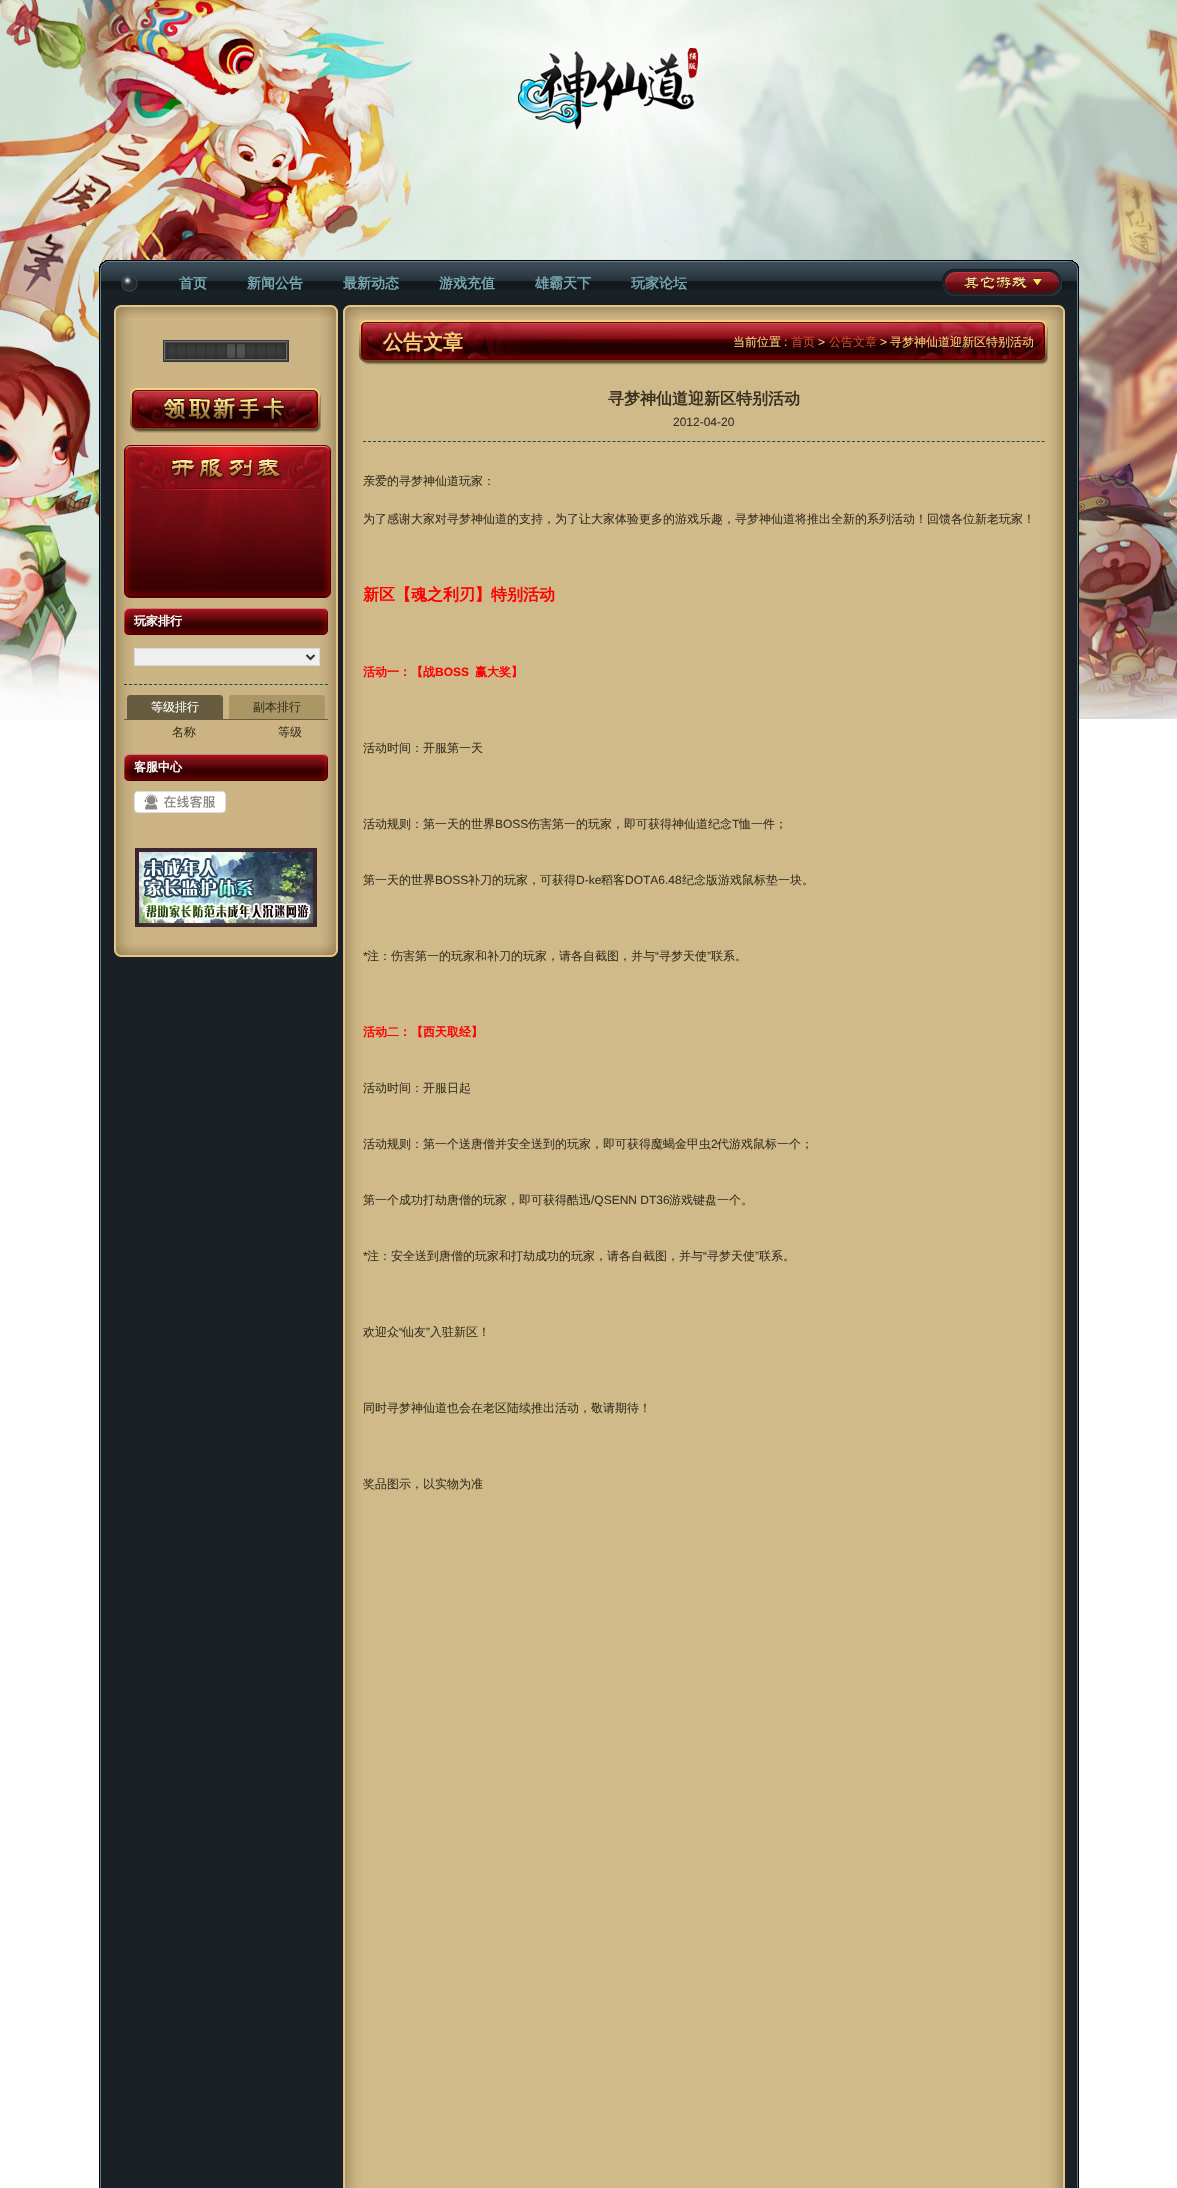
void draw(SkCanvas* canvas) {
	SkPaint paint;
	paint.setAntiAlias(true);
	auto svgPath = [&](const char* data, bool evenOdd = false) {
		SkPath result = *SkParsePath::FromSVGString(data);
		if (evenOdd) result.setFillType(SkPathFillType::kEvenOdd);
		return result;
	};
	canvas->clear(0xffffffff);
	canvas->drawImageRect(SkImages::DeferredFromEncodedData(SkData::MakeFromFileName("img1.png")), SkRect::MakeXYWH(0, 0, 1177, 719), SkSamplingOptions());
	canvas->drawImageRect(SkImages::DeferredFromEncodedData(SkData::MakeFromFileName("img2.png")), SkRect::MakeXYWH(99, 260, 980, 45), SkSamplingOptions());
	SkFont f1(fontMgr->matchFamilyStyle("WenQuanYi Zen Hei", SkFontStyle::Bold()), 14);
	f1.setSubpixel(true);
	paint.setColor(0xff75a6af);
	canvas->drawString("首页", 179, 288, f1, paint);
	canvas->drawString("新闻公告", 247, 288, f1, paint);
	canvas->drawString("最新动态", 343, 288, f1, paint);
	canvas->drawString("游戏充值", 439, 288, f1, paint);
	canvas->drawString("雄霸天下", 535, 288, f1, paint);
	canvas->drawString("玩家论坛", 631, 288, f1, paint);
	canvas->drawImageRect(SkImages::DeferredFromEncodedData(SkData::MakeFromFileName("img3.png")), SkRect::MakeXYWH(942, 269, 120, 27), SkSamplingOptions());
	canvas->drawImageRect(SkImages::DeferredFromEncodedData(SkData::MakeFromFileName("img4.png")), SkRect::MakeXYWH(99, 305, 980, 1883), SkSamplingOptions());
	canvas->drawImageRect(SkImages::DeferredFromEncodedData(SkData::MakeFromFileName("img5.png")), SkRect::MakeXYWH(114, 320, 224, 622), SkSamplingOptions());
	canvas->drawImageRect(SkImages::DeferredFromEncodedData(SkData::MakeFromFileName("img6.png")), SkRect::MakeXYWH(114, 305, 224, 15), SkSamplingOptions());
	canvas->drawImageRect(SkImages::DeferredFromEncodedData(SkData::MakeFromFileName("img7.png")), SkRect::MakeXYWH(163, 340, 126, 22), SkSamplingOptions());
	canvas->drawImageRect(SkImages::DeferredFromEncodedData(SkData::MakeFromFileName("img8.png")), SkRect::MakeXYWH(130, 387, 191, 48), SkSamplingOptions());
	canvas->drawImageRect(SkImages::DeferredFromEncodedData(SkData::MakeFromFileName("img9.png")), SkRect::MakeXYWH(124, 445, 207, 153), SkSamplingOptions());
	canvas->drawImageRect(SkImages::DeferredFromEncodedData(SkData::MakeFromFileName("img10.png")), SkRect::MakeXYWH(132, 608, 196, 27), SkSamplingOptions());
	canvas->drawImageRect(SkImages::DeferredFromEncodedData(SkData::MakeFromFileName("img11.png")), SkRect::MakeXYWH(124, 608, 8, 27), SkSamplingOptions());
	SkFont f2(fontMgr->matchFamilyStyle("WenQuanYi Zen Hei", SkFontStyle::Bold()), 12);
	f2.setSubpixel(true);
	paint.setColor(0xffffffff);
	canvas->drawString("玩家排行", 134, 625, f2, paint);
	paint.setStroke(true);
	paint.setStrokeWidth(1);
	paint.setColor(0xff005850);
	paint.setPathEffect(SkDashPathEffect::Make({{3, 2.02f}}, 0));
	canvas->drawPath(svgPath("M124 684.5H328"), paint);
	paint.setPathEffect(nullptr);
	paint.setStroke(false);
	paint.setColor(0xffefefef);
	canvas->drawRect(SkRect::MakeXYWH(134.5, 648.5, 185, 17), paint);
	paint.setStroke(true);
	paint.setColor(0xffdadada);
	canvas->drawRect(SkRect::MakeXYWH(134.5, 648.5, 185, 17), paint);
	paint.setStrokeWidth(2);
	paint.setColor(0xff333333);
	canvas->drawPath(svgPath("M306.5 655L310.5 659L314.5 655"), paint);
	paint.setStroke(false);
	paint.setColor(0xff675b40);
	canvas->drawRect(SkRect::MakeXYWH(124, 719, 204, 1), paint);
	canvas->drawPath(svgPath("M130 695H220C221.5 695 223 696.5 223 698V719H127V698C127 696.5 128.5 695 130 695Z"), paint);
	SkFont f3(fontMgr->matchFamilyStyle("WenQuanYi Zen Hei", SkFontStyle(500, SkFontStyle::kNormal_Width, SkFontStyle::kUpright_Slant)), 12);
	f3.setSubpixel(true);
	paint.setColor(0xffffffff);
	canvas->drawString("等级排行", 151, 711, f3, paint);
	paint.setColor(0xffab9666);
	canvas->drawPath(svgPath("M232 695H322C323.5 695 325 696.5 325 698V719H229V698C229 696.5 230.5 695 232 695Z"), paint);
	paint.setColor(0xff3b3322);
	canvas->drawString("副本排行", 253, 711, f3, paint);
	canvas->drawString("名称", 172, 736, f3, paint);
	canvas->drawString("等级", 278, 736, f3, paint);
	canvas->drawImageRect(SkImages::DeferredFromEncodedData(SkData::MakeFromFileName("img10.png")), SkRect::MakeXYWH(132, 754, 196, 27), SkSamplingOptions());
	canvas->drawImageRect(SkImages::DeferredFromEncodedData(SkData::MakeFromFileName("img11.png")), SkRect::MakeXYWH(124, 754, 8, 27), SkSamplingOptions());
	paint.setColor(0xffffffff);
	canvas->drawString("客服中心", 134, 771, f2, paint);
	canvas->drawImageRect(SkImages::DeferredFromEncodedData(SkData::MakeFromFileName("img12.png")), SkRect::MakeXYWH(134, 791, 92, 22), SkSamplingOptions());
	canvas->drawImageRect(SkImages::DeferredFromEncodedData(SkData::MakeFromFileName("img13.png")), SkRect::MakeXYWH(135, 848, 182, 79), SkSamplingOptions());
	canvas->drawImageRect(SkImages::DeferredFromEncodedData(SkData::MakeFromFileName("img14.png")), SkRect::MakeXYWH(114, 942, 224, 15), SkSamplingOptions());
	canvas->drawImageRect(SkImages::DeferredFromEncodedData(SkData::MakeFromFileName("img15.png")), SkRect::MakeXYWH(343, 305, 722, 15), SkSamplingOptions());
	canvas->drawImageRect(SkImages::DeferredFromEncodedData(SkData::MakeFromFileName("img16.png")), SkRect::MakeXYWH(343, 320, 722, 1868), SkSamplingOptions());
	canvas->drawImageRect(SkImages::DeferredFromEncodedData(SkData::MakeFromFileName("img17.png")), SkRect::MakeXYWH(359, 320, 689, 45), SkSamplingOptions());
	SkFont f4(fontMgr->matchFamilyStyle("WenQuanYi Zen Hei", SkFontStyle::Bold()), 20);
	f4.setSubpixel(true);
	paint.setColor(0xfff2d078);
	canvas->drawString("公告文章", 383, 349, f4, paint);
	canvas->drawString("当前位置", 733, 346, f3, paint);
	SkFont f5(fontMgr->matchFamilyStyle("Liberation Sans", SkFontStyle::Normal()), 12);
	f5.setSubpixel(true);
	canvas->drawString(":", 784, 346, f5, paint);
	paint.setColor(0xffc44d2a);
	canvas->drawString("首页", 791, 346, f3, paint);
	paint.setColor(0xfff2d078);
	canvas->drawString(">", 818, 346, f5, paint);
	paint.setColor(0xffc44d2a);
	canvas->drawString("公告文章", 829, 346, f3, paint);
	paint.setColor(0xfff2d078);
	canvas->drawString(">", 880, 346, f5, paint);
	canvas->drawString("寻梦神仙道迎新区特别活动", 890, 346, f3, paint);
	SkFont f6(fontMgr->matchFamilyStyle("WenQuanYi Zen Hei", SkFontStyle::Bold()), 16);
	f6.setSubpixel(true);
	paint.setColor(0xff3b3322);
	canvas->drawString("寻梦神仙道迎新区特别活动", 608, 404, f6, paint);
	paint.setStroke(true);
	paint.setStrokeWidth(1);
	paint.setColor(0xff005850);
	paint.setPathEffect(SkDashPathEffect::Make({{3, 1.99f}}, 0));
	canvas->drawPath(svgPath("M363 441.5H1045"), paint);
	paint.setPathEffect(nullptr);
	paint.setStroke(false);
	paint.setColor(0xff3b3322);
	canvas->drawString("2012-04-20", 673, 426, f5, paint);
	canvas->drawString("亲爱的寻梦神仙道玩家：", 363, 485, f3, paint);
	canvas->drawString("为了感谢大家对寻梦神仙道的支持，为了让大家体验更多的游戏乐趣，寻梦神仙道将推出全新的系列活动！回馈各位新老玩家！", 363, 523, f3, paint);
	paint.setColor(0xffff0000);
	canvas->drawString("新区【魂之利刃】特别活动", 363, 600, f6, paint);
	canvas->drawString("活动一：【战", 363, 676, f2, paint);
	SkFont f7(fontMgr->matchFamilyStyle("Liberation Sans", SkFontStyle::Bold()), 12);
	f7.setSubpixel(true);
	canvas->drawString("BOSS", 435, 676, f7, paint);
	canvas->drawString("赢大奖】", 475, 676, f2, paint);
	paint.setColor(0xff3b3322);
	canvas->drawString("活动时间：开服第一天", 363, 752, f3, paint);
	canvas->drawString("活动规则：第一天的世界", 363, 828, f3, paint);
	canvas->drawString("BOSS", 495, 828, f5, paint);
	canvas->drawString("伤害第一的玩家，即可获得神仙道纪念", 528, 828, f3, paint);
	canvas->drawString("T", 732, 828, f5, paint);
	canvas->drawString("恤一件；", 739, 828, f3, paint);
	canvas->drawString("第一天的世界", 363, 884, f3, paint);
	canvas->drawString("BOSS", 435, 884, f5, paint);
	canvas->drawString("补刀的玩家，可获得", 468, 884, f3, paint);
	canvas->drawString("D-ke", 576, 884, f5, paint);
	canvas->drawString("稻客", 601, 884, f3, paint);
	canvas->drawString("DOTA6.48", 625, 884, f5, paint);
	canvas->drawString("纪念版游戏鼠标垫一块。", 682, 884, f3, paint);
	canvas->drawString("*", 363, 960, f5, paint);
	canvas->drawString("注：伤害第一的玩家和补刀的玩家，请各自截图，并与", 367, 960, f3, paint);
	canvas->drawString("“", 655, 960, f5, paint);
	canvas->drawString("寻梦天使", 659, 960, f3, paint);
	canvas->drawString("”", 707, 960, f5, paint);
	canvas->drawString("联系。", 711, 960, f3, paint);
	paint.setColor(0xffff0000);
	canvas->drawString("活动二：【西天取经】", 363, 1036, f2, paint);
	paint.setColor(0xff3b3322);
	canvas->drawString("活动时间：开服日起", 363, 1092, f3, paint);
	canvas->drawString("活动规则：第一个送唐僧并安全送到的玩家，即可获得魔蝎金甲虫", 363, 1148, f3, paint);
	canvas->drawString("2", 711, 1148, f5, paint);
	canvas->drawString("代游戏鼠标一个；", 717, 1148, f3, paint);
	canvas->drawString("第一个成功打劫唐僧的玩家，即可获得酷迅", 363, 1204, f3, paint);
	canvas->drawString("/QSENN DT36", 591, 1204, f5, paint);
	canvas->drawString("游戏键盘一个。", 669, 1204, f3, paint);
	canvas->drawString("*", 363, 1260, f5, paint);
	canvas->drawString("注：安全送到唐僧的玩家和打劫成功的玩家，请各自截图，并与", 367, 1260, f3, paint);
	canvas->drawString("“", 703, 1260, f5, paint);
	canvas->drawString("寻梦天使", 707, 1260, f3, paint);
	canvas->drawString("”", 755, 1260, f5, paint);
	canvas->drawString("联系。", 759, 1260, f3, paint);
	canvas->drawString("欢迎众", 363, 1336, f3, paint);
	canvas->drawString("“", 399, 1336, f5, paint);
	canvas->drawString("仙友", 402, 1336, f3, paint);
	canvas->drawString("”", 426, 1336, f5, paint);
	canvas->drawString("入驻新区！", 430, 1336, f3, paint);
	canvas->drawString("同时寻梦神仙道也会在老区陆续推出活动，敬请期待！", 363, 1412, f3, paint);
	canvas->drawString("奖品图示，以实物为准", 363, 1488, f3, paint);
}
